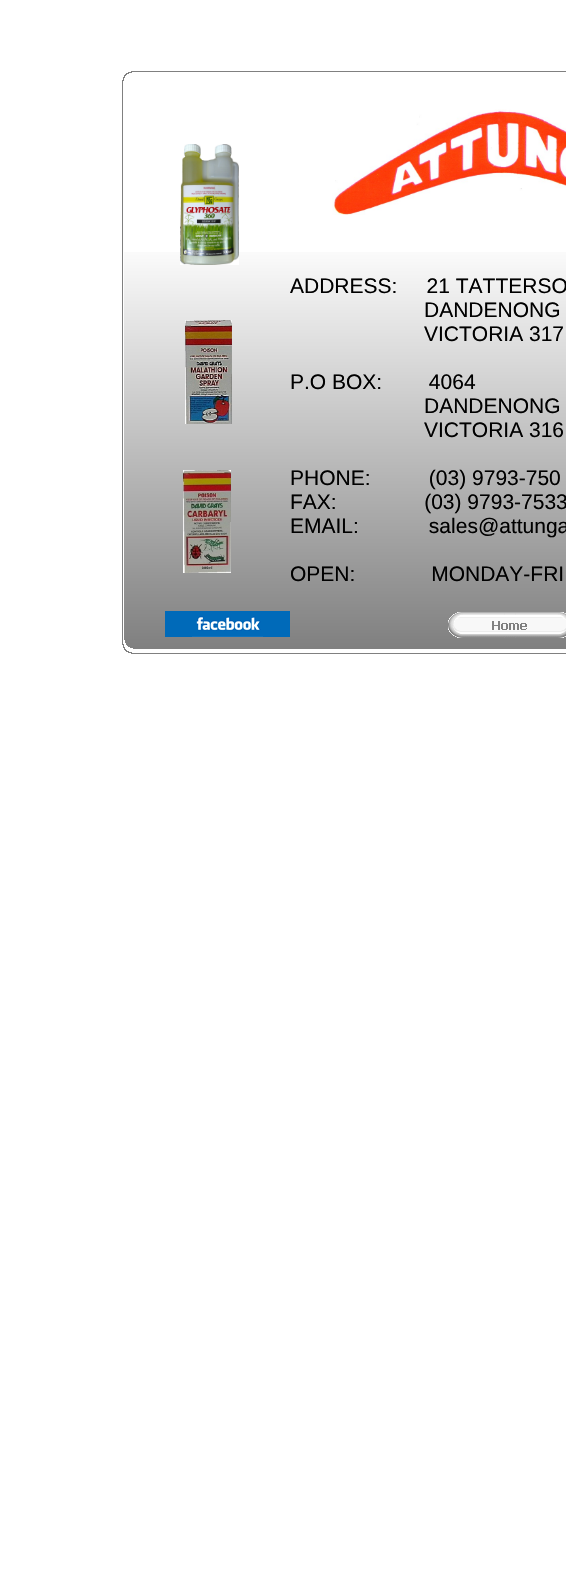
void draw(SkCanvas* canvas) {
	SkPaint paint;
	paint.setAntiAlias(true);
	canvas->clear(0xffffffff);
	canvas->drawImageRect(SkImages::DeferredFromEncodedData(SkData::MakeFromFileName("img3.png")), SkRect::MakeXYWH(332, 109, 234, 106), SkSamplingOptions());
	canvas->drawImageRect(SkImages::DeferredFromEncodedData(SkData::MakeFromFileName("img4.png")), SkRect::MakeXYWH(124, 252, 442, 397), SkSamplingOptions());
	SkFont f1(fontMgr->matchFamilyStyle("Liberation Sans", SkFontStyle::Normal()), 21);
	f1.setSubpixel(true);
	paint.setColor(0xff000000);
	canvas->drawString("ADDRESS:     21 TATTERSO", 290, 293, f1, paint);
	canvas->drawString("DANDENONG", 424, 317, f1, paint);
	canvas->drawString("VICTORIA 317", 424, 341, f1, paint);
	canvas->drawString("P.O BOX:        4064", 290, 389, f1, paint);
	canvas->drawString("DANDENONG", 424, 413, f1, paint);
	canvas->drawString("VICTORIA 316", 424, 437, f1, paint);
	canvas->drawString("PHONE:          (03) 9793-750", 290, 485, f1, paint);
	canvas->drawString("FAX:               (03) 9793-7533", 290, 509, f1, paint);
	canvas->drawString("EMAIL:            sales@attunga", 290, 533, f1, paint);
	canvas->drawString("OPEN:             MONDAY-FRI", 290, 581, f1, paint);
	canvas->drawImageRect(SkImages::DeferredFromEncodedData(SkData::MakeFromFileName("img1.png")), SkRect::MakeXYWH(122, 71, 444, 583), SkSamplingOptions());
	canvas->drawImageRect(SkImages::DeferredFromEncodedData(SkData::MakeFromFileName("img2.png")), SkRect::MakeXYWH(180, 144, 59, 121), SkSamplingOptions());
	canvas->drawImageRect(SkImages::DeferredFromEncodedData(SkData::MakeFromFileName("img5.png")), SkRect::MakeXYWH(185, 320, 47, 104), SkSamplingOptions());
	canvas->drawImageRect(SkImages::DeferredFromEncodedData(SkData::MakeFromFileName("img6.png")), SkRect::MakeXYWH(183, 470, 48, 103), SkSamplingOptions());
	canvas->drawImageRect(SkImages::DeferredFromEncodedData(SkData::MakeFromFileName("img7.png")), SkRect::MakeXYWH(165, 611, 125, 26), SkSamplingOptions());
	canvas->drawImageRect(SkImages::DeferredFromEncodedData(SkData::MakeFromFileName("img8.png")), SkRect::MakeXYWH(448, 612, 118, 26), SkSamplingOptions());
}
